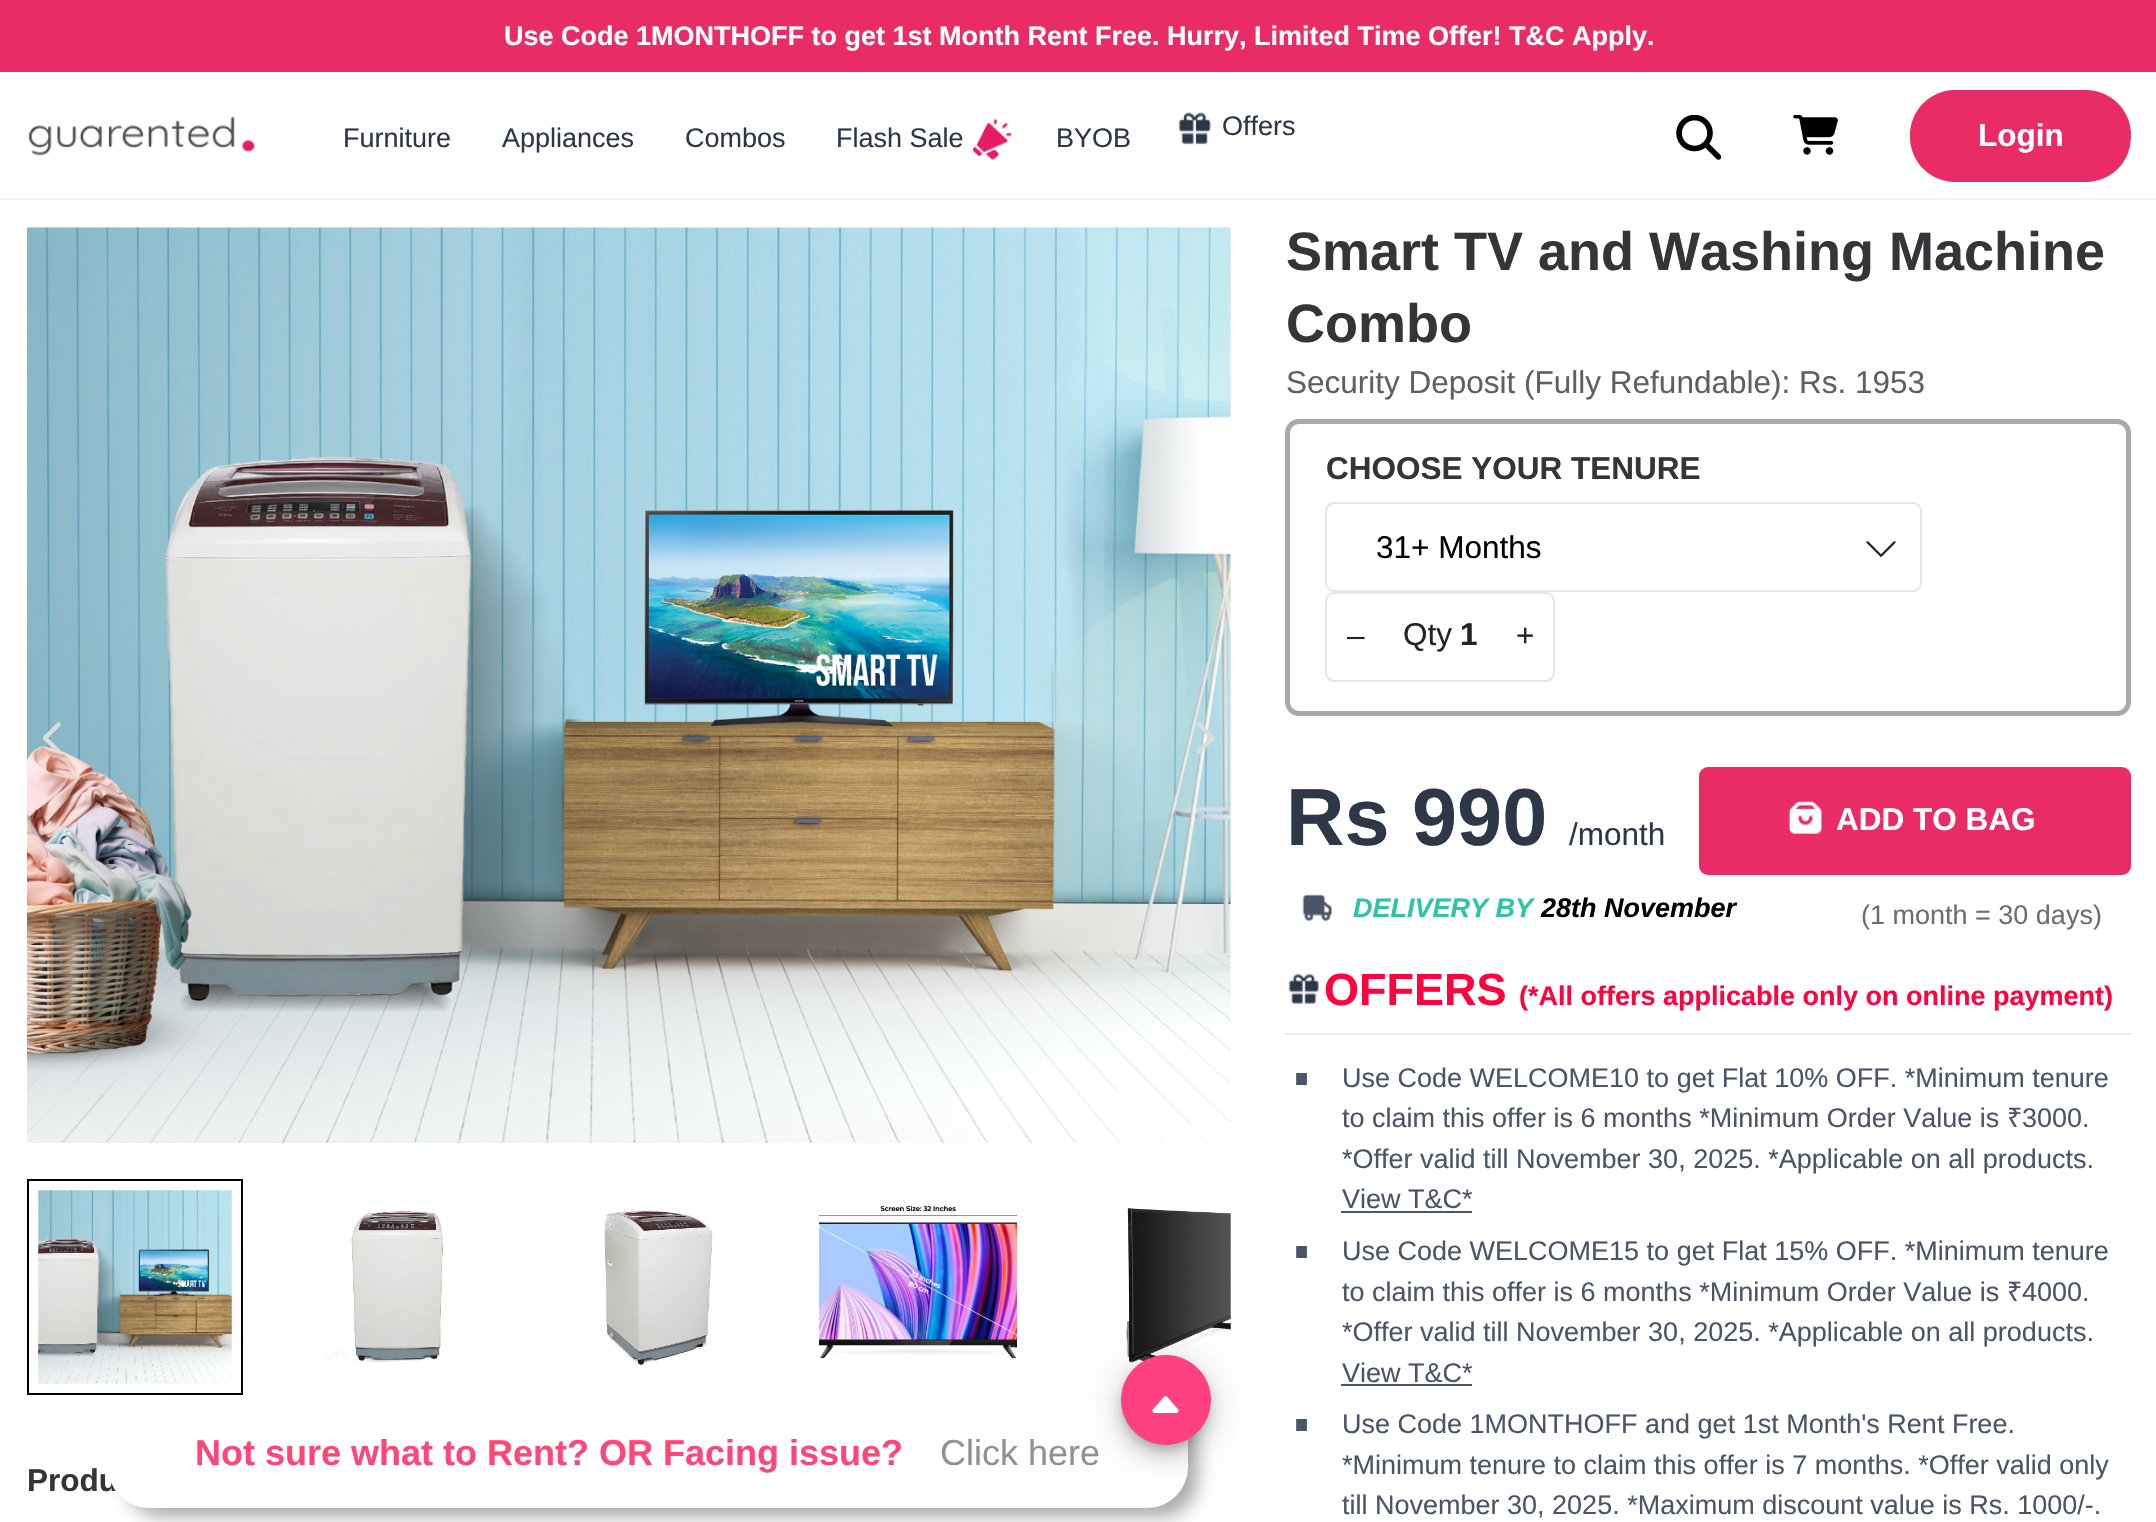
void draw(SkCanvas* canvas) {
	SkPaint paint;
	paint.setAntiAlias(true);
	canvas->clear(0xffffffff);
	paint.setColor(0xfff5f5f5);
	canvas->drawRect(SkRect::MakeXYWH(0, 198, 2156, 2), paint);
	paint.setColor(0xffe92c65);
	canvas->drawRect(SkRect::MakeXYWH(0, 0, 2156, 72), paint);
	SkFont f1(fontMgr->matchFamilyStyle("Liberation Sans", SkFontStyle::Bold()), 27);
	f1.setSubpixel(true);
	paint.setColor(0xffffffff);
	canvas->drawString("Use Code 1MONTHOFF to get 1st Month Rent Free. Hurry, Limited Time Offer! T&C Apply.", 504, 45, f1, paint);
	canvas->drawImageRect(SkImages::DeferredFromEncodedData(SkData::MakeFromFileName("img1.png")), SkRect::MakeXYWH(28, 116, 227, 40), SkSamplingOptions());
	SkFont f2(fontMgr->matchFamilyStyle("Liberation Sans", SkFontStyle::Normal()), 27);
	f2.setSubpixel(true);
	paint.setColor(0xff2d3748);
	canvas->drawString("Furniture", 343, 147, f2, paint);
	canvas->drawString("Appliances", 502, 147, f2, paint);
	canvas->drawString("Combos", 685, 147, f2, paint);
	canvas->drawString("Flash Sale", 836, 147, f2, paint);
	canvas->drawImageRect(SkImages::DeferredFromEncodedData(SkData::MakeFromFileName("img2.png")), SkRect::MakeXYWH(972, 118, 40, 42), SkSamplingOptions());
	canvas->drawString("BYOB", 1056, 147, f2, paint);
	canvas->drawImageRect(SkImages::DeferredFromEncodedData(SkData::MakeFromFileName("img3.png")), SkRect::MakeXYWH(1179, 112, 32, 33), SkSamplingOptions());
	canvas->drawString("Offers", 1222, 135, f2, paint);
	canvas->drawImageRect(SkImages::DeferredFromEncodedData(SkData::MakeFromFileName("img4.png")), SkRect::MakeXYWH(1676, 115, 45, 45), SkSamplingOptions());
	canvas->drawImageRect(SkImages::DeferredFromEncodedData(SkData::MakeFromFileName("img5.png")), SkRect::MakeXYWH(1793, 115, 45, 40), SkSamplingOptions());
	paint.setColor(0xffe92c65);
	canvas->drawRoundRect(SkRect::MakeXYWH(1910, 90, 221, 92), 45, 45, paint);
	SkFont f3(fontMgr->matchFamilyStyle("Liberation Sans", SkFontStyle::Bold()), 31.5);
	f3.setSubpixel(true);
	paint.setColor(0xffffffff);
	canvas->drawString("Login", 1978, 146, f3, paint);
	paint.setStroke(true);
	paint.setStrokeWidth(2);
	paint.setColor(0xff000000);
	canvas->drawRect(SkRect::MakeXYWH(28, 1180, 214, 214), paint);
	paint.setStroke(false);
	paint.setColor(0xffaaaaaa);
	paint.setMaskFilter(SkMaskFilter::MakeBlur(kNormal_SkBlurStyle, 9));
	canvas->drawRoundRect(SkRect::MakeXYWH(126, 1418, 1071, 99), 36, 36, paint);
	paint.setMaskFilter(nullptr);
	paint.setColor(0xff343538);
	canvas->drawString("Produ", 27, 1491, f3, paint);
	paint.setColor(0xffffffff);
	canvas->drawRoundRect(SkRect::MakeXYWH(108, 1400, 1080, 108), 41, 41, paint);
	SkFont f4(fontMgr->matchFamilyStyle("Liberation Sans", SkFontStyle::Bold()), 36);
	f4.setSubpixel(true);
	paint.setColor(0xffff4677);
	canvas->drawString("Not sure what to Rent? OR Facing issue?", 195, 1465, f4, paint);
	SkFont f5(fontMgr->matchFamilyStyle("Liberation Sans", SkFontStyle::Normal()), 36);
	f5.setSubpixel(true);
	paint.setColor(0xff919191);
	canvas->drawString("Click here", 940, 1465, f5, paint);
	canvas->drawImageRect(SkImages::DeferredFromEncodedData(SkData::MakeFromFileName("img14.png")), SkRect::MakeXYWH(1126, 1208, 105, 160), SkSamplingOptions());
	paint.setColor(0x1f000000);
	paint.setMaskFilter(SkMaskFilter::MakeBlur(kNormal_SkBlurStyle, 20));
	canvas->drawRoundRect(SkRect::MakeXYWH(1121, 1357, 90, 90), 45, 45, paint);
	paint.setMaskFilter(nullptr);
	paint.setColor(0x24000000);
	paint.setMaskFilter(SkMaskFilter::MakeBlur(kNormal_SkBlurStyle, 11));
	canvas->drawRoundRect(SkRect::MakeXYWH(1121, 1368, 90, 90), 45, 45, paint);
	paint.setMaskFilter(nullptr);
	paint.setColor(0x33000000);
	paint.setMaskFilter(SkMaskFilter::MakeBlur(kNormal_SkBlurStyle, 5.5));
	canvas->drawRoundRect(SkRect::MakeXYWH(1123, 1364, 85, 85), 42.5, 42.5, paint);
	paint.setMaskFilter(nullptr);
	paint.setColor(0xffff4081);
	canvas->drawCircle(1166, 1400, 45, paint);
	canvas->drawImageRect(SkImages::DeferredFromEncodedData(SkData::MakeFromFileName("img6.png")), SkRect::MakeXYWH(1152, 1396, 27, 17), SkSamplingOptions());
	canvas->drawImageRect(SkImages::DeferredFromEncodedData(SkData::MakeFromFileName("img7.png")), SkRect::MakeXYWH(27, 227, 1204, 916), SkSamplingOptions());
	canvas->drawImageRect(SkImages::DeferredFromEncodedData(SkData::MakeFromFileName("img8.png")), SkRect::MakeXYWH(43, 722, 18, 32), SkSamplingOptions());
	canvas->drawImageRect(SkImages::DeferredFromEncodedData(SkData::MakeFromFileName("img9.png")), SkRect::MakeXYWH(1197, 722, 18, 32), SkSamplingOptions());
	canvas->drawImageRect(SkImages::DeferredFromEncodedData(SkData::MakeFromFileName("img10.png")), SkRect::MakeXYWH(38, 1190, 194, 194), SkSamplingOptions());
	canvas->drawImageRect(SkImages::DeferredFromEncodedData(SkData::MakeFromFileName("img11.png")), SkRect::MakeXYWH(323, 1211, 121, 152), SkSamplingOptions());
	canvas->drawImageRect(SkImages::DeferredFromEncodedData(SkData::MakeFromFileName("img12.png")), SkRect::MakeXYWH(604, 1210, 109, 156), SkSamplingOptions());
	canvas->drawImageRect(SkImages::DeferredFromEncodedData(SkData::MakeFromFileName("img13.png")), SkRect::MakeXYWH(819, 1205, 198, 154), SkSamplingOptions());
	SkFont f6(fontMgr->matchFamilyStyle("Liberation Sans", SkFontStyle::Bold()), 54);
	f6.setSubpixel(true);
	paint.setColor(0xff343538);
	canvas->drawString("Smart TV and Washing Machine", 1286, 270, f6, paint);
	canvas->drawString("Combo", 1286, 342, f6, paint);
	SkFont f7(fontMgr->matchFamilyStyle("Liberation Sans", SkFontStyle::Normal()), 31.5);
	f7.setSubpixel(true);
	paint.setColor(0xff606060);
	canvas->drawString("Security Deposit (Fully Refundable): Rs. 1953", 1286, 393, f7, paint);
	canvas->drawImageRect(SkImages::DeferredFromEncodedData(SkData::MakeFromFileName("img15.png")), SkRect::MakeXYWH(1866, 541, 30, 16), SkSamplingOptions());
	paint.setStroke(true);
	paint.setStrokeWidth(5);
	paint.setColor(0xffa9a9a9);
	canvas->drawRoundRect(SkRect::MakeXYWH(1287.5, 421.5, 841, 292), 11.5, 11.5, paint);
	paint.setStroke(false);
	paint.setColor(0xff343538);
	canvas->drawString("CHOOSE YOUR TENURE", 1326, 479, f3, paint);
	paint.setStroke(true);
	paint.setStrokeWidth(2);
	paint.setColor(0xffe6e6e6);
	canvas->drawRoundRect(SkRect::MakeXYWH(1326, 503, 595, 88), 8, 8, paint);
	paint.setStroke(false);
	paint.setColor(0xff000000);
	canvas->drawString("31+ Months", 1376, 558, f7, paint);
	paint.setStroke(true);
	paint.setColor(0xffe6e6e6);
	canvas->drawRoundRect(SkRect::MakeXYWH(1326, 593, 228, 88), 8, 8, paint);
	paint.setStroke(false);
	paint.setColor(0xff212529);
	canvas->drawString("–", 1347, 646, f7, paint);
	canvas->drawString("Qty", 1403, 645, f7, paint);
	canvas->drawString("1", 1460, 645, f3, paint);
	canvas->drawString("+", 1516, 646, f7, paint);
	SkFont f8(fontMgr->matchFamilyStyle("Liberation Sans", SkFontStyle::Bold()), 81);
	f8.setSubpixel(true);
	paint.setColor(0xff2d3748);
	canvas->drawString("Rs 990", 1286, 845, f8, paint);
	canvas->drawString("/month", 1569, 845, f7, paint);
	paint.setColor(0xffe92c65);
	canvas->drawRoundRect(SkRect::MakeXYWH(1699, 767, 432, 108), 9, 9, paint);
	canvas->drawImageRect(SkImages::DeferredFromEncodedData(SkData::MakeFromFileName("img16.png")), SkRect::MakeXYWH(1788, 801, 34, 33), SkSamplingOptions());
	paint.setColor(0xffffffff);
	canvas->drawString("ADD TO BAG", 1836, 830, f3, paint);
	canvas->drawImageRect(SkImages::DeferredFromEncodedData(SkData::MakeFromFileName("img17.png")), SkRect::MakeXYWH(1302, 894, 30, 28), SkSamplingOptions());
	SkFont f9(fontMgr->matchFamilyStyle("Liberation Sans", SkFontStyle::BoldItalic()), 27);
	f9.setSubpixel(true);
	paint.setColor(0xff2fc3a7);
	canvas->drawString("DELIVERY BY", 1353, 917, f9, paint);
	paint.setColor(0xff000000);
	canvas->drawString("28th November", 1541, 917, f9, paint);
	paint.setColor(0xff6e6e6e);
	canvas->drawString("(1 month = 30 days)", 1861, 924, f2, paint);
	canvas->drawImageRect(SkImages::DeferredFromEncodedData(SkData::MakeFromFileName("img18.png")), SkRect::MakeXYWH(1288, 973, 31, 31), SkSamplingOptions());
	SkFont f10(fontMgr->matchFamilyStyle("Liberation Sans", SkFontStyle::Bold()), 45);
	f10.setSubpixel(true);
	paint.setColor(0xffff033e);
	canvas->drawString("OFFERS", 1324, 1005, f10, paint);
	canvas->drawString("(*All offers applicable only on online payment)", 1519, 1005, f1, paint);
	paint.setColor(0xffeeeeee);
	canvas->drawRect(SkRect::MakeXYWH(1285, 1033, 846, 2), paint);
	SkFont f11(fontMgr->matchFamilyStyle("Liberation Sans", SkFontStyle::Normal()), 112);
	f11.setSubpixel(true);
	paint.setColor(0xff4a5568);
	canvas->drawString(".", 1286, 1085, f11, paint);
	canvas->drawString("Use Code WELCOME10 to get Flat 10% OFF. *Minimum tenure", 1342, 1087, f2, paint);
	canvas->drawString("to claim this offer is 6 months *Minimum Order Value is", 1342, 1127, f2, paint);
	SkFont f12(fontMgr->matchFamilyStyle("Noto Sans", SkFontStyle::Normal()), 27);
	f12.setSubpixel(true);
	canvas->drawString("₹", 2007, 1127, f12, paint);
	canvas->drawString("3000.", 2022, 1127, f2, paint);
	canvas->drawString("*Offer valid till November 30, 2025. *Applicable on all products.", 1342, 1168, f2, paint);
	canvas->drawString("View T&C*", 1342, 1208, f2, paint);
	canvas->drawRect(SkRect::MakeXYWH(1341, 1211, 131, 2), paint);
	canvas->drawString(".", 1286, 1258, f11, paint);
	canvas->drawString("Use Code WELCOME15 to get Flat 15% OFF. *Minimum tenure", 1342, 1260, f2, paint);
	canvas->drawString("to claim this offer is 6 months *Minimum Order Value is", 1342, 1301, f2, paint);
	canvas->drawString("₹", 2007, 1301, f12, paint);
	canvas->drawString("4000.", 2022, 1301, f2, paint);
	canvas->drawString("*Offer valid till November 30, 2025. *Applicable on all products.", 1342, 1341, f2, paint);
	canvas->drawString("View T&C*", 1342, 1382, f2, paint);
	canvas->drawRect(SkRect::MakeXYWH(1341, 1384, 131, 2), paint);
	canvas->drawString(".", 1286, 1431, f11, paint);
	canvas->drawString("Use Code 1MONTHOFF and get 1st Month's Rent Free.", 1342, 1433, f2, paint);
	canvas->drawString("*Minimum tenure to claim this offer is 7 months. *Offer valid only", 1342, 1474, f2, paint);
	canvas->drawString("till November 30, 2025. *Maximum discount value is Rs. 1000/-.", 1342, 1514, f2, paint);
}
